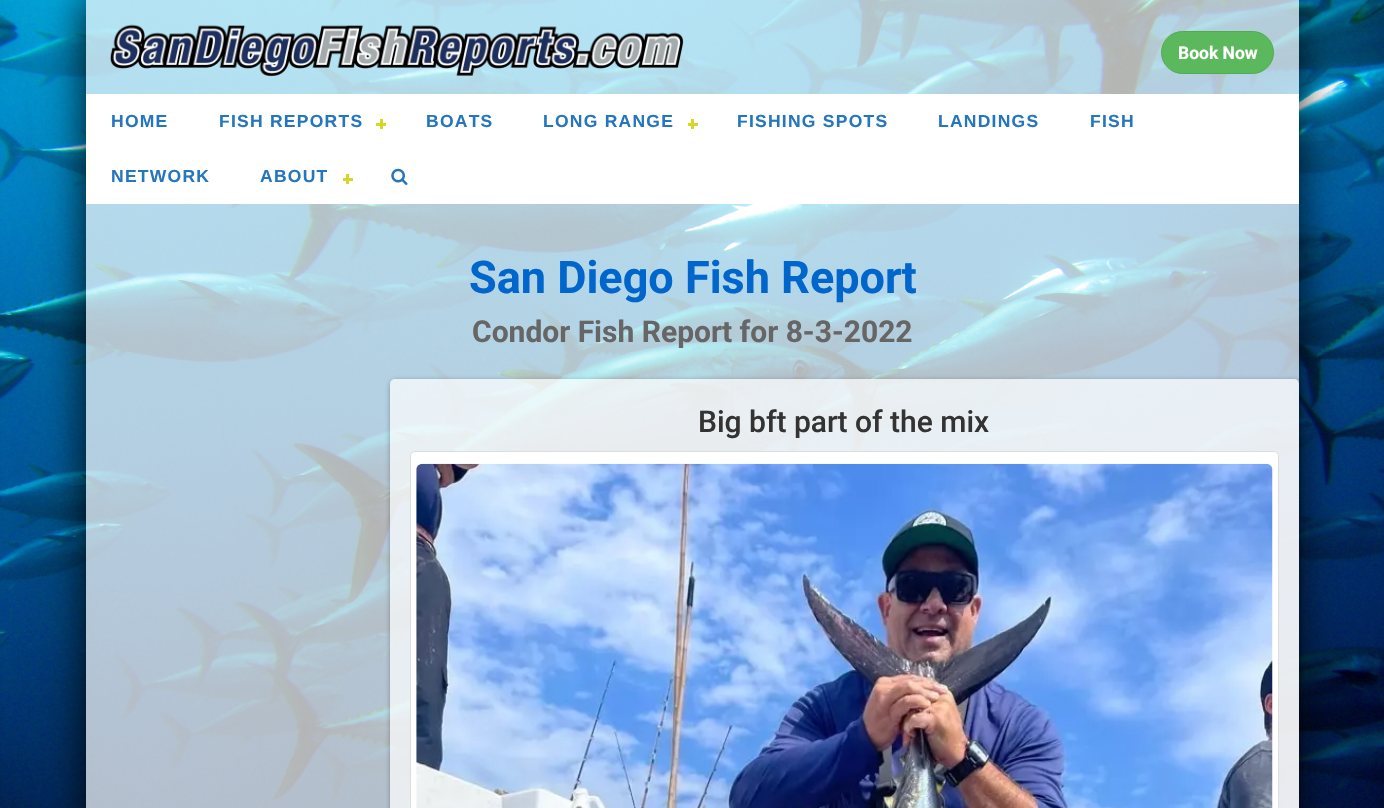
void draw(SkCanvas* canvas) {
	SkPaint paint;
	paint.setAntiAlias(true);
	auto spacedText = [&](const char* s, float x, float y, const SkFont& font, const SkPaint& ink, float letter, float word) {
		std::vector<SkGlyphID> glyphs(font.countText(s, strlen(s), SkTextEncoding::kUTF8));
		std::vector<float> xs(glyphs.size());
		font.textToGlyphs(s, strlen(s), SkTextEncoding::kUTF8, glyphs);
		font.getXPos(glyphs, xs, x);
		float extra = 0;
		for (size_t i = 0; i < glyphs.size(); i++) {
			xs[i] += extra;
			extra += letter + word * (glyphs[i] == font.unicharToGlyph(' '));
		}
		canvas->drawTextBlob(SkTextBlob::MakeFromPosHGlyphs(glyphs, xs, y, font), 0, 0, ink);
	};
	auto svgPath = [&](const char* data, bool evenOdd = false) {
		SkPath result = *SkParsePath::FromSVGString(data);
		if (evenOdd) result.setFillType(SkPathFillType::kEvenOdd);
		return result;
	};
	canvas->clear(0xffffffff);
	canvas->drawImageRect(SkImages::DeferredFromEncodedData(SkData::MakeFromFileName("img1.png")), SkRect::MakeXYWH(0, 0, 1384, 808), SkSamplingOptions());
	canvas->save();
	canvas->clipPath(svgPath("M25 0H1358V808H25ZM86 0H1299V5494H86Z", true), true);
	paint.setColor(0xcc000000);
	paint.setMaskFilter(SkMaskFilter::MakeBlur(kNormal_SkBlurStyle, 19));
	canvas->drawRect(SkRect::MakeXYWH(83, -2, 1217, 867), paint);
	paint.setMaskFilter(nullptr);
	canvas->restore();
	paint.setColor(0xb3ffffff);
	canvas->drawRect(SkRect::MakeXYWH(86, 0, 1213, 808), paint);
	canvas->drawImageRect(SkImages::DeferredFromEncodedData(SkData::MakeFromFileName("img2.png")), SkRect::MakeXYWH(110, 24, 574, 53), SkSamplingOptions());
	paint.setColor(0xff5cb85c);
	canvas->drawRoundRect(SkRect::MakeXYWH(1161.5, 31.5, 112, 42), 21, 21, paint);
	paint.setStroke(true);
	paint.setStrokeWidth(1);
	paint.setColor(0xff4cae4c);
	canvas->drawRoundRect(SkRect::MakeXYWH(1161.5, 31.5, 112, 42), 21, 21, paint);
	SkFont f1(fontMgr->matchFamilyStyle("Roboto", SkFontStyle::Bold()), 17.5);
	f1.setSubpixel(true);
	paint.setStroke(false);
	paint.setColor(0xffffffff);
	canvas->drawString("Book Now", 1178, 59, f1, paint);
	canvas->drawRect(SkRect::MakeXYWH(86, 94, 1213, 110), paint);
	SkFont f2(fontMgr->matchFamilyStyle("Liberation Sans", SkFontStyle::Bold()), 17.5);
	f2.setSubpixel(true);
	paint.setColor(0xff2576bd);
	spacedText("HOME", 111, 127, f2, paint, 1.25, 0);
	spacedText("FISH REPORTS", 219, 127, f2, paint, 1.25, 0);
	paint.setColor(0xffd6d628);
	canvas->drawRect(SkRect::MakeXYWH(380, 119, 3, 10), paint);
	canvas->drawRect(SkRect::MakeXYWH(376, 123, 10, 3), paint);
	paint.setColor(0xff2576bd);
	spacedText("BOATS", 426, 127, f2, paint, 1.25, 0);
	spacedText("LONG RANGE", 543, 127, f2, paint, 1.25, 0);
	paint.setColor(0xffd6d628);
	canvas->drawRect(SkRect::MakeXYWH(691, 119, 3, 10), paint);
	canvas->drawRect(SkRect::MakeXYWH(688, 123, 10, 3), paint);
	paint.setColor(0xff2576bd);
	spacedText("FISHING SPOTS", 737, 127, f2, paint, 1.25, 0);
	spacedText("LANDINGS", 938, 127, f2, paint, 1.25, 0);
	spacedText("FISH", 1090, 127, f2, paint, 1.25, 0);
	spacedText("NETWORK", 111, 182, f2, paint, 1.25, 0);
	spacedText("ABOUT", 260, 182, f2, paint, 1.25, 0);
	paint.setColor(0xffd6d628);
	canvas->drawRect(SkRect::MakeXYWH(346, 174, 3, 10), paint);
	canvas->drawRect(SkRect::MakeXYWH(343, 178, 10, 3), paint);
	canvas->drawImageRect(SkImages::DeferredFromEncodedData(SkData::MakeFromFileName("img3.png")), SkRect::MakeXYWH(391, 168, 17, 17), SkSamplingOptions());
	SkFont f3(fontMgr->matchFamilyStyle("Roboto", SkFontStyle::Bold()), 45);
	f3.setSubpixel(true);
	paint.setColor(0xff0066cc);
	canvas->drawString("San Diego Fish Report", 469, 293, f3, paint);
	SkFont f4(fontMgr->matchFamilyStyle("Roboto", SkFontStyle::Bold()), 30);
	f4.setSubpixel(true);
	paint.setColor(0xff666666);
	canvas->drawString("Condor Fish Report for 8-3-2022", 472, 342, f4, paint);
	canvas->save();
	canvas->clipPath(svgPath("M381 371H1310V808H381ZM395 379H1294C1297 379 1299 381 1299 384V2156C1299 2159 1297 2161 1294 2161H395C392 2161 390 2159 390 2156V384C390 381 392 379 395 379Z", true), true);
	paint.setColor(0x66060606);
	paint.setMaskFilter(SkMaskFilter::MakeBlur(kNormal_SkBlurStyle, 3));
	canvas->drawRoundRect(SkRect::MakeXYWH(391, 381, 909, 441), 5, 5, paint);
	paint.setMaskFilter(nullptr);
	canvas->restore();
	paint.setColor(0xb3ffffff);
	canvas->drawRoundRect(SkRect::MakeXYWH(390, 379, 909, 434), 5, 5, paint);
	SkFont f5(fontMgr->matchFamilyStyle("Roboto", SkFontStyle(500, SkFontStyle::kNormal_Width, SkFontStyle::kUpright_Slant)), 30);
	f5.setSubpixel(true);
	paint.setColor(0xff333333);
	canvas->drawString("Big bft part of the mix", 698, 432, f5, paint);
	paint.setColor(0xffffffff);
	canvas->drawRoundRect(SkRect::MakeXYWH(410.5, 451.5, 868, 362), 4.5, 4.5, paint);
	paint.setStroke(true);
	paint.setColor(0xffdddddd);
	canvas->drawRoundRect(SkRect::MakeXYWH(410.5, 451.5, 868, 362), 4.5, 4.5, paint);
	canvas->drawImageRect(SkImages::DeferredFromEncodedData(SkData::MakeFromFileName("img4.png")), SkRect::MakeXYWH(416, 463, 857, 345), SkSamplingOptions());
}
